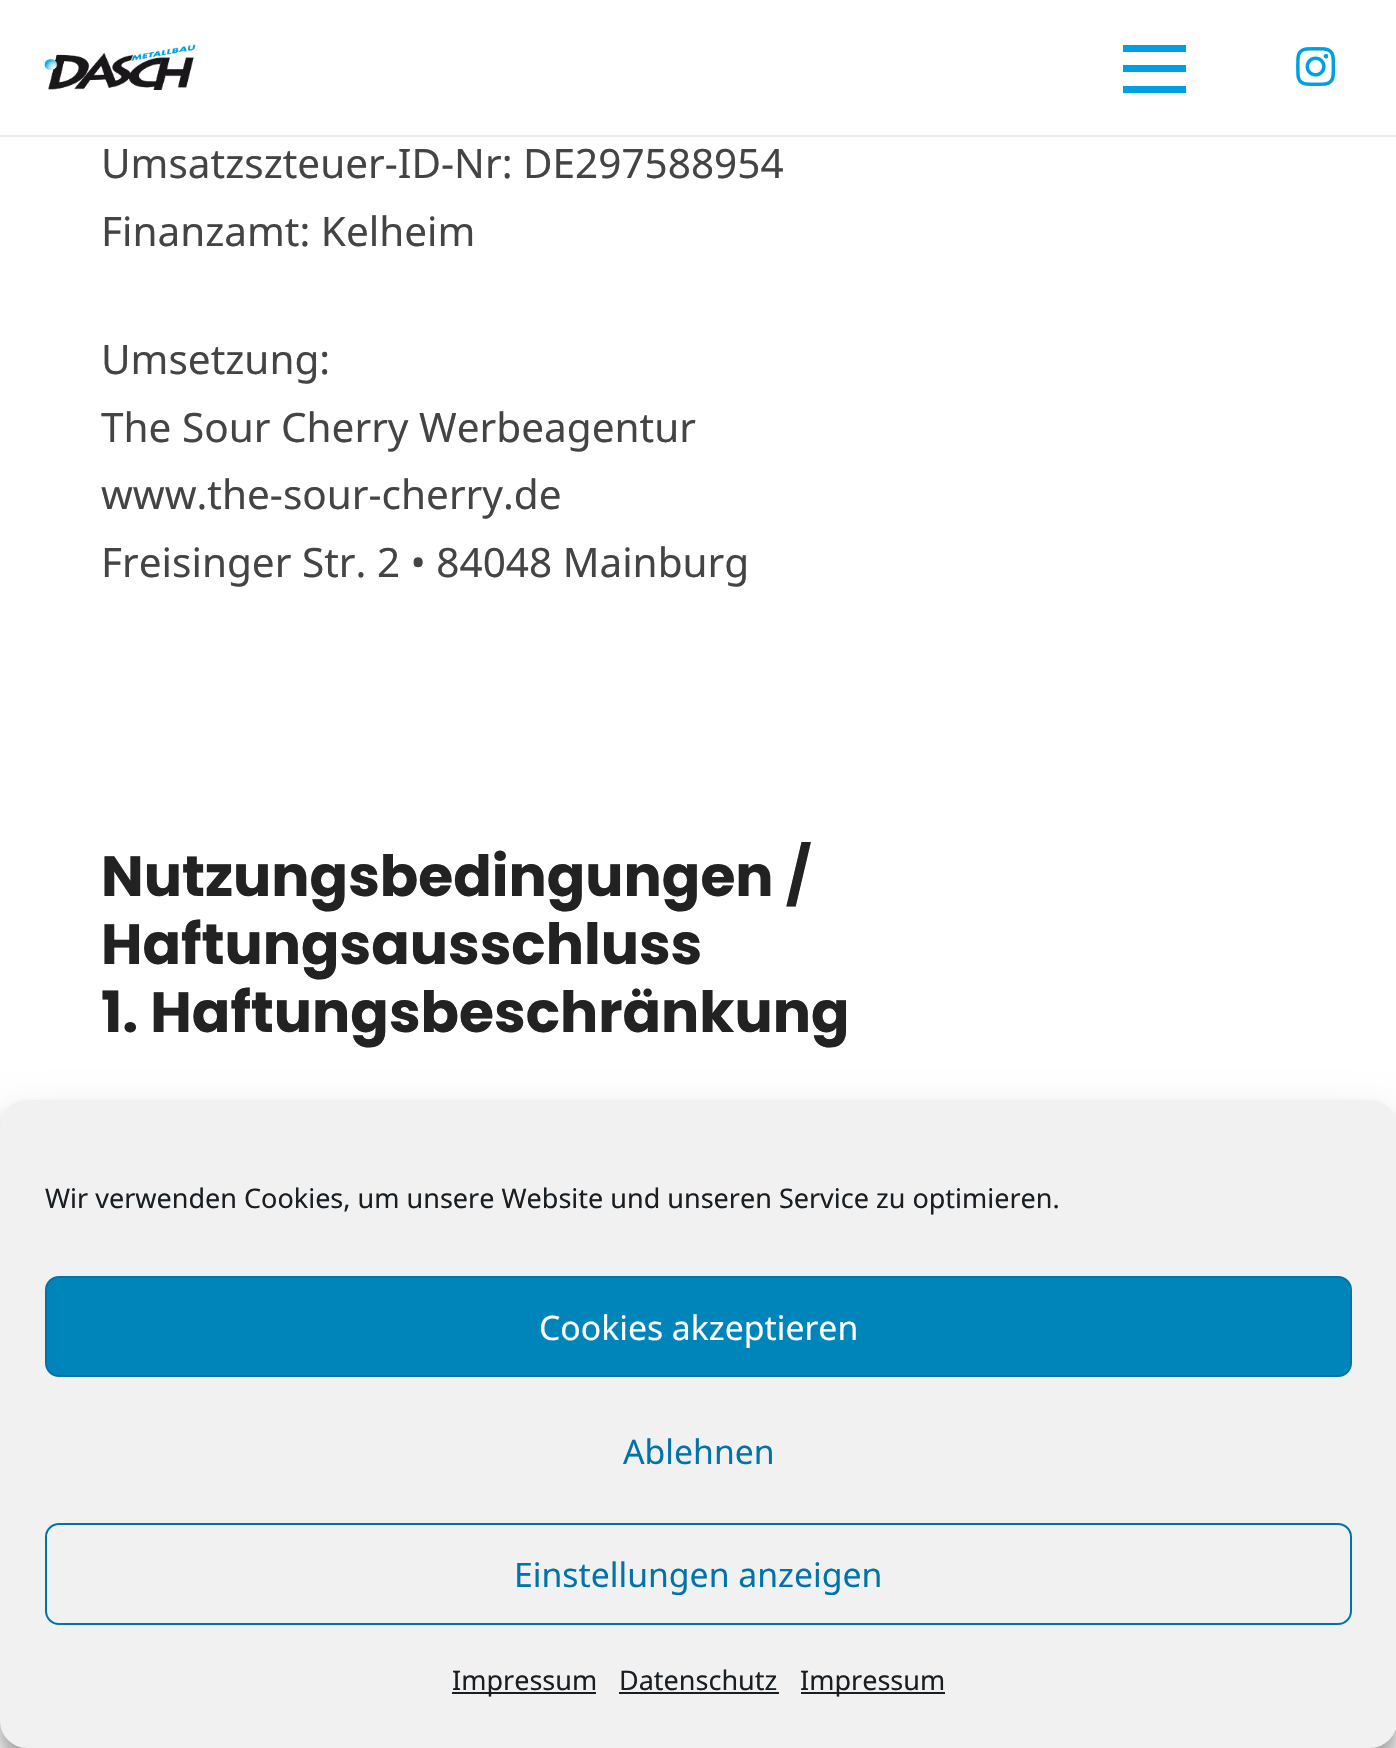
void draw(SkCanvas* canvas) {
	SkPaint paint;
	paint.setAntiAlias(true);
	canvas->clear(0xffffffff);
	paint.setColor(0xffebebeb);
	canvas->drawRect(SkRect::MakeXYWH(0, 135, 1396, 2), paint);
	canvas->drawImageRect(SkImages::DeferredFromEncodedData(SkData::MakeFromFileName("img1.png")), SkRect::MakeXYWH(44, 44, 152, 46), SkSamplingOptions());
	paint.setColor(0xff009fe3);
	canvas->drawRect(SkRect::MakeXYWH(1123, 65, 63, 7), paint);
	canvas->drawRect(SkRect::MakeXYWH(1123, 45, 63, 7), paint);
	canvas->drawRect(SkRect::MakeXYWH(1123, 86, 63, 7), paint);
	canvas->drawImageRect(SkImages::DeferredFromEncodedData(SkData::MakeFromFileName("img2.png")), SkRect::MakeXYWH(1296, 47, 40, 39), SkSamplingOptions());
	SkFont f1(fontMgr->matchFamilyStyle("Noto Sans", SkFontStyle::Normal()), 40.5);
	f1.setSubpixel(true);
	paint.setColor(0xff444444);
	canvas->drawString("Umsatzszteuer-ID-Nr: DE297588954", 101, 178, f1, paint);
	canvas->drawString("Finanzamt: Kelheim", 101, 246, f1, paint);
	canvas->drawString("Umsetzung:", 101, 374, f1, paint);
	canvas->drawString("The Sour Cherry Werbeagentur", 101, 442, f1, paint);
	canvas->drawString("www.the-sour-cherry.de", 101, 509, f1, paint);
	canvas->drawString("Freisinger Str. 2 • 84048 Mainburg", 101, 577, f1, paint);
	SkFont f2(fontMgr->matchFamilyStyle("Poppins", SkFontStyle::Bold()), 56.75);
	f2.setSubpixel(true);
	paint.setColor(0xff222222);
	canvas->drawString("Nutzungsbedingungen /", 101, 896, f2, paint);
	canvas->drawString("Haftungsausschluss", 101, 964, f2, paint);
	canvas->drawString("1. Haftungsbeschränkung", 101, 1032, f2, paint);
	paint.setColor(0x3b000000);
	paint.setMaskFilter(SkMaskFilter::MakeBlur(kNormal_SkBlurStyle, 7));
	canvas->drawRoundRect(SkRect::MakeXYWH(0, 1114, 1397, 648), 27, 27, paint);
	paint.setMaskFilter(nullptr);
	paint.setColor(0x30000000);
	paint.setMaskFilter(SkMaskFilter::MakeBlur(kNormal_SkBlurStyle, 22.5));
	canvas->drawRoundRect(SkRect::MakeXYWH(0, 1123, 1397, 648), 27, 27, paint);
	paint.setMaskFilter(nullptr);
	paint.setColor(0xfff1f1f1);
	canvas->drawRoundRect(SkRect::MakeXYWH(0, 1100, 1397, 648), 27, 27, paint);
	SkFont f3(fontMgr->matchFamilyStyle("Noto Sans", SkFontStyle::Normal()), 27);
	f3.setSubpixel(true);
	paint.setColor(0xff191e23);
	canvas->drawString("Wir verwenden Cookies, um unsere Website und unseren Service zu optimieren.", 45, 1208, f3, paint);
	paint.setColor(0xff0085ba);
	canvas->drawRoundRect(SkRect::MakeXYWH(46, 1277, 1305, 99), 13, 13, paint);
	paint.setStroke(true);
	paint.setStrokeWidth(2);
	paint.setColor(0xff0073aa);
	canvas->drawRoundRect(SkRect::MakeXYWH(46, 1277, 1305, 99), 13, 13, paint);
	SkFont f4(fontMgr->matchFamilyStyle("Noto Sans", SkFontStyle::Normal()), 33.75);
	f4.setSubpixel(true);
	paint.setStroke(false);
	paint.setColor(0xffffffff);
	canvas->drawString("Cookies akzeptieren", 539, 1340, f4, paint);
	paint.setColor(0xff0073aa);
	canvas->drawString("Ablehnen", 623, 1464, f4, paint);
	paint.setStroke(true);
	canvas->drawRoundRect(SkRect::MakeXYWH(46, 1524, 1305, 100), 13, 13, paint);
	paint.setStroke(false);
	canvas->drawString("Einstellungen anzeigen", 514, 1587, f4, paint);
	paint.setColor(0xff191e23);
	canvas->drawRect(SkRect::MakeXYWH(452, 1692, 144, 2), paint);
	canvas->drawString("Impressum", 452, 1690, f3, paint);
	canvas->drawString("Datenschutz", 619, 1690, f3, paint);
	canvas->drawRect(SkRect::MakeXYWH(619, 1692, 160, 2), paint);
	canvas->drawRect(SkRect::MakeXYWH(801, 1692, 144, 2), paint);
	canvas->drawString("Impressum", 800, 1690, f3, paint);
}
